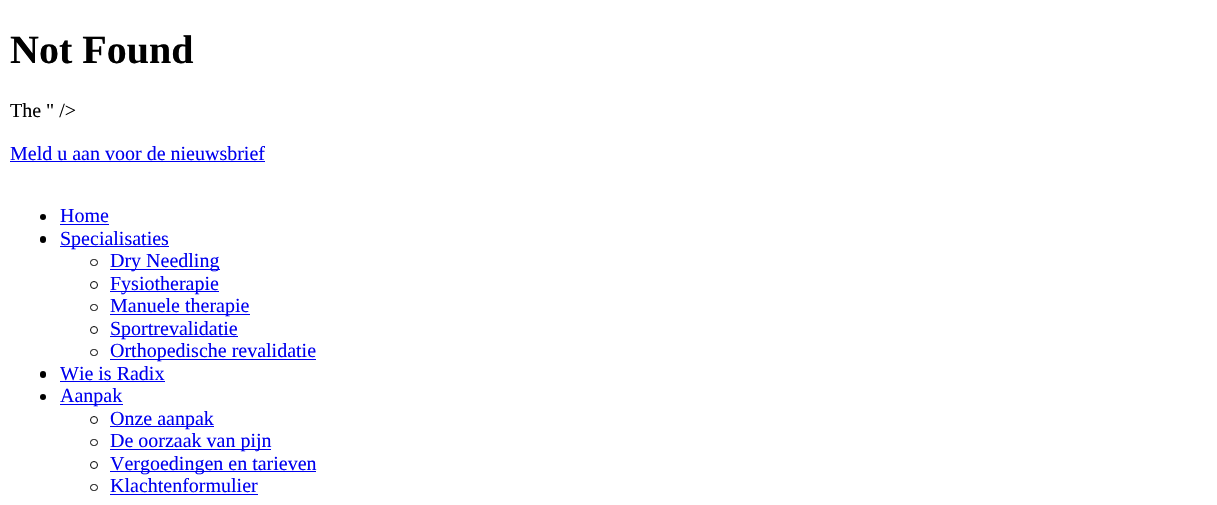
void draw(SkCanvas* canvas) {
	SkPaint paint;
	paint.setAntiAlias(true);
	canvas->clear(0xffffffff);
	SkFont f1(fontMgr->matchFamilyStyle("Liberation Serif", SkFontStyle::Bold()), 40);
	f1.setSubpixel(true);
	paint.setColor(0xff000000);
	canvas->drawString("Not Found", 10, 63, f1, paint);
	SkFont f2(fontMgr->matchFamilyStyle("Liberation Serif", SkFontStyle::Normal()), 20);
	f2.setSubpixel(true);
	canvas->drawString("The \" />", 10, 117, f2, paint);
	paint.setColor(0xff0000ee);
	canvas->drawString("Meld u aan voor de nieuwsbrief", 10, 160, f2, paint);
	canvas->drawRect(SkRect::MakeXYWH(10, 161, 255, 1), paint);
	paint.setColor(0xff000000);
	canvas->drawCircle(43, 217, 3, paint);
	paint.setColor(0xff0000ee);
	canvas->drawString("Home", 60, 222, f2, paint);
	canvas->drawRect(SkRect::MakeXYWH(60, 224, 49, 1), paint);
	paint.setColor(0xff000000);
	canvas->drawRoundRect(SkRect::MakeXYWH(40, 236, 6, 7), 3, 3, paint);
	paint.setColor(0xff0000ee);
	canvas->drawRect(SkRect::MakeXYWH(60, 246, 109, 1), paint);
	canvas->drawString("Specialisaties", 60, 245, f2, paint);
	paint.setStroke(true);
	paint.setStrokeWidth(1);
	paint.setColor(0xff000000);
	canvas->drawRoundRect(SkRect::MakeXYWH(90.5, 259.5, 7, 6), 3, 3, paint);
	paint.setStroke(false);
	paint.setColor(0xff0000ee);
	canvas->drawRect(SkRect::MakeXYWH(110, 269, 110, 1), paint);
	canvas->drawString("Dry Needling", 110, 267, f2, paint);
	paint.setStroke(true);
	paint.setColor(0xff000000);
	canvas->drawCircle(94, 285, 3.5, paint);
	paint.setStroke(false);
	paint.setColor(0xff0000ee);
	canvas->drawRect(SkRect::MakeXYWH(110, 291, 109, 1), paint);
	canvas->drawString("Fysiotherapie", 110, 290, f2, paint);
	paint.setStroke(true);
	paint.setColor(0xff000000);
	canvas->drawRoundRect(SkRect::MakeXYWH(90.5, 304.5, 7, 6), 3, 3, paint);
	paint.setStroke(false);
	paint.setColor(0xff0000ee);
	canvas->drawRect(SkRect::MakeXYWH(110, 314, 140, 1), paint);
	canvas->drawString("Manuele therapie", 110, 312, f2, paint);
	paint.setStroke(true);
	paint.setColor(0xff000000);
	canvas->drawCircle(94, 330, 3.5, paint);
	paint.setStroke(false);
	paint.setColor(0xff0000ee);
	canvas->drawRect(SkRect::MakeXYWH(110, 336, 128, 1), paint);
	canvas->drawString("Sportrevalidatie", 110, 335, f2, paint);
	paint.setStroke(true);
	paint.setColor(0xff000000);
	canvas->drawRoundRect(SkRect::MakeXYWH(90.5, 349.5, 7, 6), 3, 3, paint);
	paint.setStroke(false);
	paint.setColor(0xff0000ee);
	canvas->drawRect(SkRect::MakeXYWH(110, 359, 206, 1), paint);
	canvas->drawString("Orthopedische revalidatie", 110, 357, f2, paint);
	paint.setColor(0xff000000);
	canvas->drawRoundRect(SkRect::MakeXYWH(40, 371, 6, 7), 3, 3, paint);
	paint.setColor(0xff0000ee);
	canvas->drawString("Wie is Radix", 60, 380, f2, paint);
	canvas->drawRect(SkRect::MakeXYWH(60, 381, 105, 1), paint);
	paint.setColor(0xff000000);
	canvas->drawCircle(43, 397, 3, paint);
	paint.setColor(0xff0000ee);
	canvas->drawRect(SkRect::MakeXYWH(60, 404, 63, 1), paint);
	canvas->drawString("Aanpak", 60, 402, f2, paint);
	paint.setStroke(true);
	paint.setColor(0xff000000);
	canvas->drawCircle(94, 420, 3.5, paint);
	paint.setStroke(false);
	paint.setColor(0xff0000ee);
	canvas->drawRect(SkRect::MakeXYWH(110, 426, 104, 1), paint);
	canvas->drawString("Onze aanpak", 110, 425, f2, paint);
	paint.setStroke(true);
	paint.setColor(0xff000000);
	canvas->drawRoundRect(SkRect::MakeXYWH(90.5, 439.5, 7, 6), 3, 3, paint);
	paint.setStroke(false);
	paint.setColor(0xff0000ee);
	canvas->drawRect(SkRect::MakeXYWH(110, 449, 161, 1), paint);
	canvas->drawString("De oorzaak van pijn", 110, 447, f2, paint);
	paint.setStroke(true);
	paint.setColor(0xff000000);
	canvas->drawCircle(94, 465, 3.5, paint);
	paint.setStroke(false);
	paint.setColor(0xff0000ee);
	canvas->drawRect(SkRect::MakeXYWH(110, 471, 206, 1), paint);
	canvas->drawString("Vergoedingen en tarieven", 110, 470, f2, paint);
	paint.setStroke(true);
	paint.setColor(0xff000000);
	canvas->drawRoundRect(SkRect::MakeXYWH(90.5, 484.5, 7, 6), 3, 3, paint);
	paint.setStroke(false);
	paint.setColor(0xff0000ee);
	canvas->drawString("Klachtenformulier", 110, 492, f2, paint);
	canvas->drawRect(SkRect::MakeXYWH(110, 494, 148, 1), paint);
}
